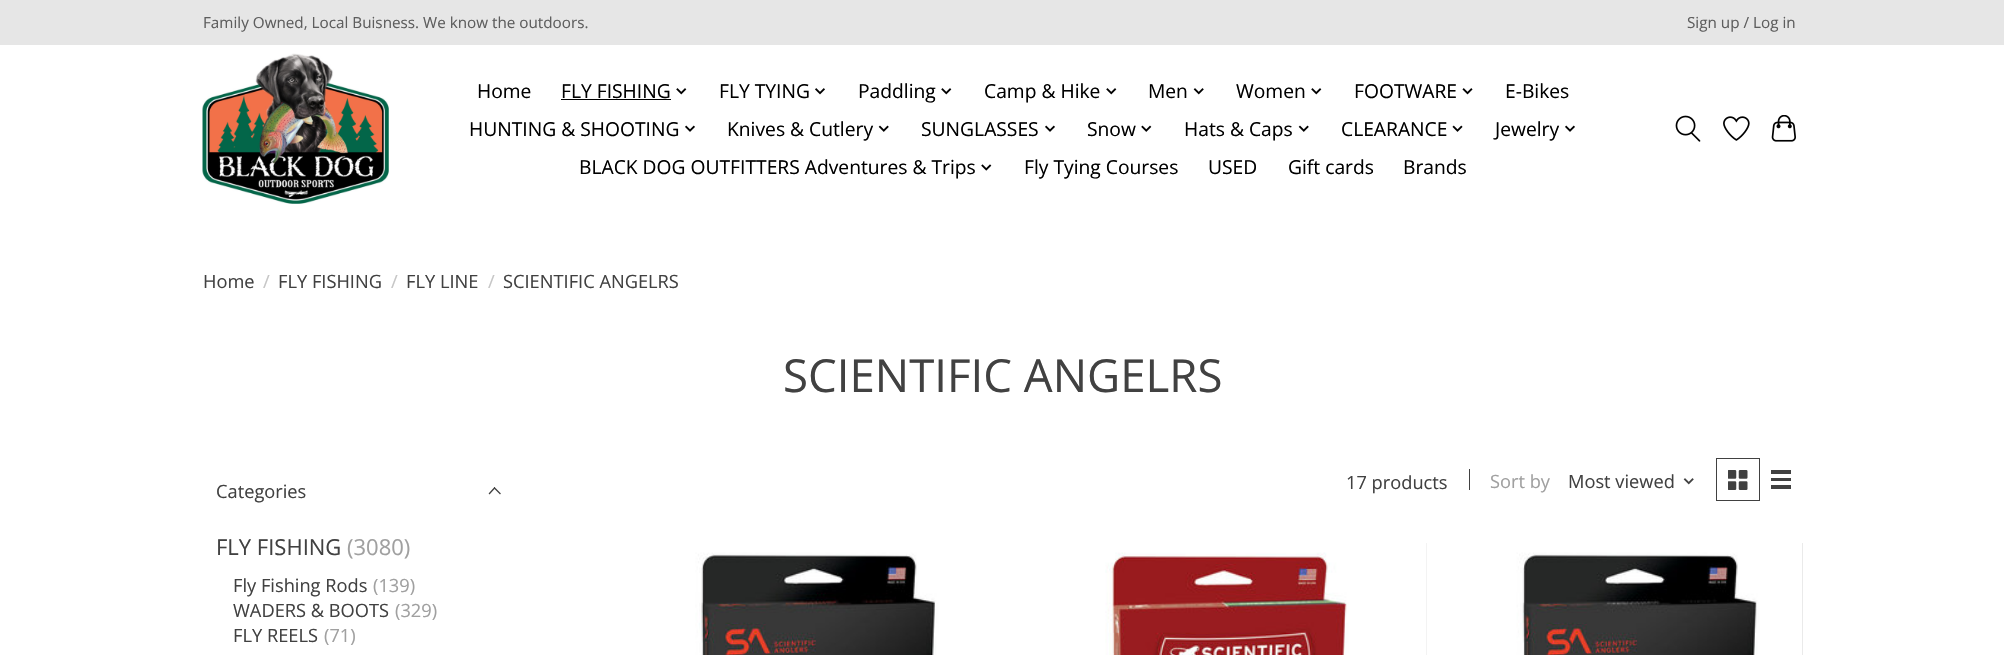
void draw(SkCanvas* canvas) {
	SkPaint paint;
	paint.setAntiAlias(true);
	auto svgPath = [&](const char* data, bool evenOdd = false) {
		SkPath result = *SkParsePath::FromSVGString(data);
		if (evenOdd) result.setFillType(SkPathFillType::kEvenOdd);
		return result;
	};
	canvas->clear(0xffffffff);
	paint.setColor(0xffe6e6e6);
	canvas->drawRect(SkRect::MakeXYWH(0, 0, 2004, 45), paint);
	SkFont f1(fontMgr->matchFamilyStyle("Open Sans", SkFontStyle::Normal()), 15.25);
	f1.setSubpixel(true);
	paint.setColor(0xff5e5e5e);
	canvas->drawString("Family Owned, Local Buisness. We know the outdoors.", 203, 28, f1, paint);
	canvas->drawString("Sign up / Log in", 1687, 28, f1, paint);
	canvas->drawImageRect(SkImages::DeferredFromEncodedData(SkData::MakeFromFileName("img1.png")), SkRect::MakeXYWH(202, 53, 187, 151), SkSamplingOptions());
	SkFont f2(fontMgr->matchFamilyStyle("Open Sans", SkFontStyle::Normal()), 19.25);
	f2.setSubpixel(true);
	paint.setColor(0xff000000);
	canvas->drawString("Home", 477, 98, f2, paint);
	canvas->drawString("FLY FISHING", 561, 98, f2, paint);
	canvas->drawRect(SkRect::MakeXYWH(561, 99, 110, 1), paint);
	canvas->drawImageRect(SkImages::DeferredFromEncodedData(SkData::MakeFromFileName("img2.png")), SkRect::MakeXYWH(676, 88, 11, 7), SkSamplingOptions());
	canvas->drawString("FLY TYING", 719, 98, f2, paint);
	canvas->drawImageRect(SkImages::DeferredFromEncodedData(SkData::MakeFromFileName("img3.png")), SkRect::MakeXYWH(815, 88, 10, 7), SkSamplingOptions());
	canvas->drawString("Paddling", 858, 98, f2, paint);
	canvas->drawImageRect(SkImages::DeferredFromEncodedData(SkData::MakeFromFileName("img2.png")), SkRect::MakeXYWH(941, 88, 11, 7), SkSamplingOptions());
	canvas->drawString("Camp & Hike", 984, 98, f2, paint);
	canvas->drawImageRect(SkImages::DeferredFromEncodedData(SkData::MakeFromFileName("img2.png")), SkRect::MakeXYWH(1106, 88, 11, 7), SkSamplingOptions());
	canvas->drawString("Men", 1148, 98, f2, paint);
	canvas->drawImageRect(SkImages::DeferredFromEncodedData(SkData::MakeFromFileName("img4.png")), SkRect::MakeXYWH(1193, 88, 11, 7), SkSamplingOptions());
	canvas->drawString("Women", 1236, 98, f2, paint);
	canvas->drawImageRect(SkImages::DeferredFromEncodedData(SkData::MakeFromFileName("img2.png")), SkRect::MakeXYWH(1311, 88, 11, 7), SkSamplingOptions());
	canvas->drawString("FOOTWARE", 1354, 98, f2, paint);
	canvas->drawImageRect(SkImages::DeferredFromEncodedData(SkData::MakeFromFileName("img5.png")), SkRect::MakeXYWH(1462, 88, 11, 7), SkSamplingOptions());
	canvas->drawString("E-Bikes", 1505, 98, f2, paint);
	canvas->drawString("HUNTING & SHOOTING", 469, 136, f2, paint);
	canvas->drawImageRect(SkImages::DeferredFromEncodedData(SkData::MakeFromFileName("img6.png")), SkRect::MakeXYWH(685, 125, 10, 7), SkSamplingOptions());
	canvas->drawString("Knives & Cutlery", 727, 136, f2, paint);
	canvas->drawImageRect(SkImages::DeferredFromEncodedData(SkData::MakeFromFileName("img7.png")), SkRect::MakeXYWH(878, 125, 11, 7), SkSamplingOptions());
	canvas->drawString("SUNGLASSES", 921, 136, f2, paint);
	canvas->drawImageRect(SkImages::DeferredFromEncodedData(SkData::MakeFromFileName("img6.png")), SkRect::MakeXYWH(1045, 125, 10, 7), SkSamplingOptions());
	canvas->drawString("Snow", 1087, 136, f2, paint);
	canvas->drawImageRect(SkImages::DeferredFromEncodedData(SkData::MakeFromFileName("img8.png")), SkRect::MakeXYWH(1141, 125, 11, 7), SkSamplingOptions());
	canvas->drawString("Hats & Caps", 1184, 136, f2, paint);
	canvas->drawImageRect(SkImages::DeferredFromEncodedData(SkData::MakeFromFileName("img7.png")), SkRect::MakeXYWH(1298, 125, 11, 7), SkSamplingOptions());
	canvas->drawString("CLEARANCE", 1341, 136, f2, paint);
	canvas->drawImageRect(SkImages::DeferredFromEncodedData(SkData::MakeFromFileName("img9.png")), SkRect::MakeXYWH(1452, 125, 11, 7), SkSamplingOptions());
	canvas->drawString("Jewelry", 1495, 136, f2, paint);
	canvas->drawImageRect(SkImages::DeferredFromEncodedData(SkData::MakeFromFileName("img6.png")), SkRect::MakeXYWH(1565, 125, 10, 7), SkSamplingOptions());
	canvas->drawString("BLACK DOG OUTFITTERS Adventures & Trips", 579, 174, f2, paint);
	canvas->drawImageRect(SkImages::DeferredFromEncodedData(SkData::MakeFromFileName("img10.png")), SkRect::MakeXYWH(981, 164, 11, 7), SkSamplingOptions());
	canvas->drawString("Fly Tying Courses", 1024, 174, f2, paint);
	canvas->drawString("USED", 1208, 174, f2, paint);
	canvas->drawString("Gift cards", 1288, 174, f2, paint);
	canvas->drawString("Brands", 1403, 174, f2, paint);
	canvas->drawImageRect(SkImages::DeferredFromEncodedData(SkData::MakeFromFileName("img11.png")), SkRect::MakeXYWH(1675, 115, 26, 27), SkSamplingOptions());
	canvas->drawImageRect(SkImages::DeferredFromEncodedData(SkData::MakeFromFileName("img12.png")), SkRect::MakeXYWH(1723, 116, 27, 25), SkSamplingOptions());
	canvas->drawImageRect(SkImages::DeferredFromEncodedData(SkData::MakeFromFileName("img13.png")), SkRect::MakeXYWH(1771, 115, 25, 27), SkSamplingOptions());
	SkFont f3(fontMgr->matchFamilyStyle("Open Sans", SkFontStyle::Normal()), 18.25);
	f3.setSubpixel(true);
	paint.setColor(0xff414141);
	canvas->drawString("Home", 203, 288, f3, paint);
	paint.setColor(0xffc6c6c6);
	canvas->drawString("/", 263, 288, f3, paint);
	paint.setColor(0xff414141);
	canvas->drawString("FLY FISHING", 278, 288, f3, paint);
	paint.setColor(0xffc6c6c6);
	canvas->drawString("/", 391, 288, f3, paint);
	paint.setColor(0xff414141);
	canvas->drawString("FLY LINE", 406, 288, f3, paint);
	paint.setColor(0xffc6c6c6);
	canvas->drawString("/", 488, 288, f3, paint);
	paint.setColor(0xff414141);
	canvas->drawString("SCIENTIFIC ANGELRS", 503, 288, f3, paint);
	SkFont f4(fontMgr->matchFamilyStyle("Open Sans", SkFontStyle::Normal()), 45.6);
	f4.setSubpixel(true);
	canvas->drawString("SCIENTIFIC ANGELRS", 783, 392, f4, paint);
	canvas->drawString("Categories", 216, 498, f3, paint);
	paint.setStroke(true);
	paint.setStrokeWidth(1.3);
	paint.setStrokeCap(SkPaint::kSquare_Cap);
	canvas->drawPath(svgPath("M489.5 493.5L494.5 488M500 493.5L494.5 488"), paint);
	SkFont f5(fontMgr->matchFamilyStyle("Open Sans", SkFontStyle::Normal()), 22);
	f5.setSubpixel(true);
	paint.setStroke(false);
	canvas->drawString("FLY FISHING", 216, 555, f5, paint);
	paint.setColor(0xffa0a0a0);
	canvas->drawString("(3080)", 347, 555, f5, paint);
	paint.setColor(0xff414141);
	canvas->drawString("Fly Fishing Rods", 233, 592, f3, paint);
	paint.setColor(0xffa0a0a0);
	canvas->drawString("(139)", 373, 592, f3, paint);
	paint.setColor(0xff414141);
	canvas->drawString("WADERS & BOOTS", 233, 617, f3, paint);
	paint.setColor(0xffa0a0a0);
	canvas->drawString("(329)", 395, 617, f3, paint);
	paint.setColor(0xff414141);
	canvas->drawString("FLY REELS", 233, 642, f3, paint);
	paint.setColor(0xffa0a0a0);
	canvas->drawString("(71)", 324, 642, f3, paint);
	paint.setColor(0xff414141);
	canvas->drawString("17 products", 1346, 489, f3, paint);
	canvas->drawRect(SkRect::MakeXYWH(1469, 469, 1, 21), paint);
	paint.setColor(0xffa0a0a0);
	canvas->drawString("Sort by", 1490, 488, f3, paint);
	paint.setColor(0xff414141);
	canvas->drawString("Most viewed", 1568, 488, f3, paint);
	canvas->drawImageRect(SkImages::DeferredFromEncodedData(SkData::MakeFromFileName("img14.png")), SkRect::MakeXYWH(1683, 478, 11, 7), SkSamplingOptions());
	paint.setStroke(true);
	paint.setStrokeWidth(1);
	paint.setStrokeCap(SkPaint::kButt_Cap);
	canvas->drawRect(SkRect::MakeXYWH(1716.5, 458.5, 43, 42), paint);
	canvas->drawImageRect(SkImages::DeferredFromEncodedData(SkData::MakeFromFileName("img15.png")), SkRect::MakeXYWH(1728, 470, 20, 20), SkSamplingOptions());
	paint.setStroke(false);
	canvas->drawRect(SkRect::MakeXYWH(1771, 470, 20, 4), paint);
	canvas->drawRect(SkRect::MakeXYWH(1771, 478, 20, 3), paint);
	canvas->drawRect(SkRect::MakeXYWH(1771, 485, 20, 4), paint);
	canvas->drawImageRect(SkImages::DeferredFromEncodedData(SkData::MakeFromFileName("img16.png")), SkRect::MakeXYWH(605, 543, 376, 112), SkSamplingOptions());
	canvas->drawImageRect(SkImages::DeferredFromEncodedData(SkData::MakeFromFileName("img17.png")), SkRect::MakeXYWH(1015, 543, 376, 112), SkSamplingOptions());
	paint.setColor(0xffe3e3e3);
	canvas->drawRect(SkRect::MakeXYWH(1426, 543, 377, 112), paint);
	canvas->drawImageRect(SkImages::DeferredFromEncodedData(SkData::MakeFromFileName("img18.png")), SkRect::MakeXYWH(1426, 543, 377, 112), SkSamplingOptions());
}
